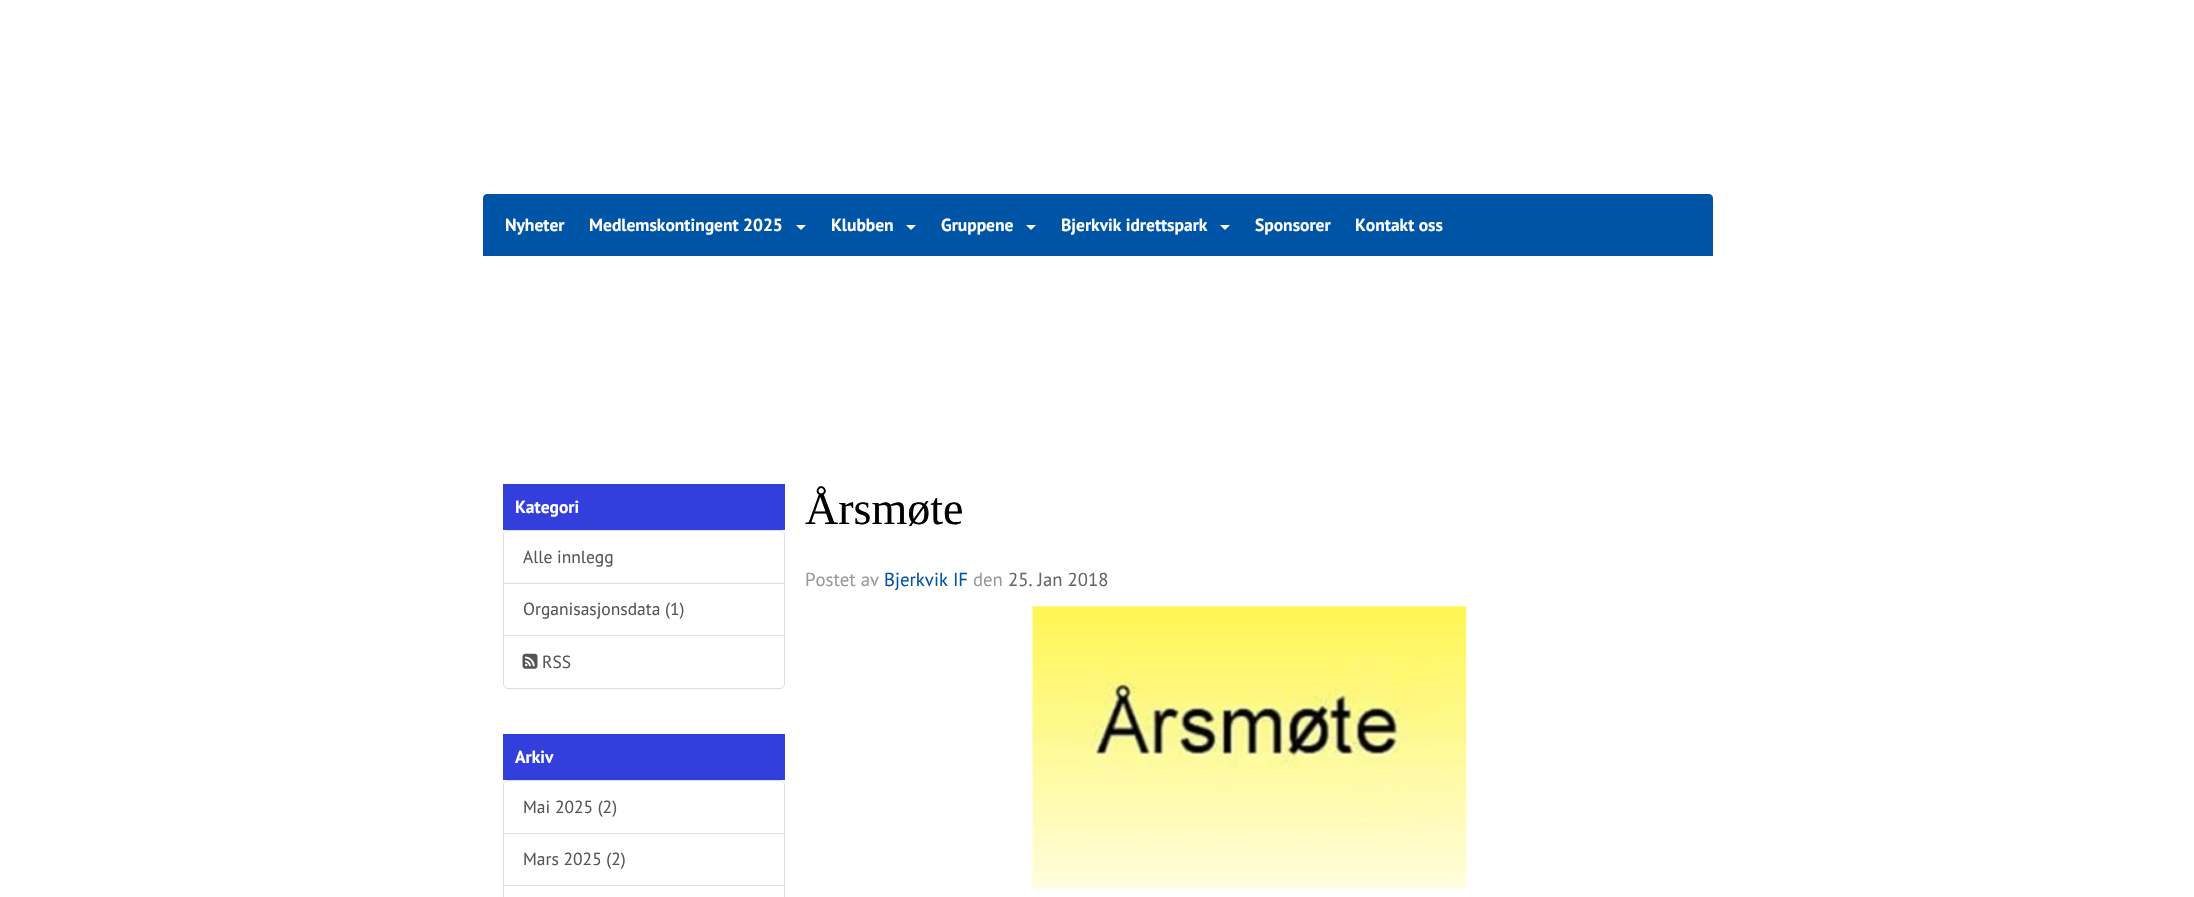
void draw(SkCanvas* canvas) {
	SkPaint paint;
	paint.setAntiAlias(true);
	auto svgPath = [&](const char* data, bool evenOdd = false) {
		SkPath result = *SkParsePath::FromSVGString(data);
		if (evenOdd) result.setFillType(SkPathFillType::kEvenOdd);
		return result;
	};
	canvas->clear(0xffffffff);
	paint.setColor(0xff0054a6);
	canvas->drawPath(svgPath("M487 194H1709C1711 194 1713 196 1713 198V256H483V198C483 196 485 194 487 194Z"), paint);
	SkFont f1(fontMgr->matchFamilyStyle("PT Sans", SkFontStyle::Bold()), 17.5);
	f1.setSubpixel(true);
	paint.setColor(0xffffffff);
	canvas->drawString("Nyheter", 505, 231, f1, paint);
	canvas->drawString("Medlemskontingent 2025", 589, 231, f1, paint);
	canvas->drawPath(svgPath("M796 225H806L801 230Z"), paint);
	canvas->drawString("Klubben", 831, 231, f1, paint);
	canvas->drawPath(svgPath("M906 225H916L911 230Z"), paint);
	canvas->drawString("Gruppene", 941, 231, f1, paint);
	canvas->drawPath(svgPath("M1026 225H1036L1031 230Z"), paint);
	canvas->drawString("Bjerkvik idrettspark", 1061, 231, f1, paint);
	canvas->drawPath(svgPath("M1220 225H1230L1225 230Z"), paint);
	canvas->drawString("Sponsorer", 1255, 231, f1, paint);
	canvas->drawString("Kontakt oss", 1355, 231, f1, paint);
	paint.setColor(0xff323fdc);
	canvas->drawRect(SkRect::MakeXYWH(503, 484, 282, 46), paint);
	paint.setColor(0xffffffff);
	canvas->drawString("Kategori", 515, 513, f1, paint);
	paint.setStroke(true);
	paint.setStrokeWidth(1);
	paint.setColor(0xffdddddd);
	canvas->drawPath(svgPath("M508 530.5H780C782.5 530.5 784.5 532.5 784.5 535V583.5H503.5V535C503.5 532.5 505.5 530.5 508 530.5Z"), paint);
	SkFont f2(fontMgr->matchFamilyStyle("PT Sans", SkFontStyle::Normal()), 17.5);
	f2.setSubpixel(true);
	paint.setStroke(false);
	paint.setColor(0xff555555);
	canvas->drawString("Alle innlegg", 523, 563, f2, paint);
	paint.setStroke(true);
	paint.setColor(0xffdddddd);
	canvas->drawRect(SkRect::MakeXYWH(503.5, 583.5, 281, 52), paint);
	paint.setStroke(false);
	paint.setColor(0xff555555);
	canvas->drawString("Organisasjonsdata (1)", 523, 615, f2, paint);
	paint.setColor(0xffffffff);
	canvas->drawPath(svgPath("M503.5 635.5H784.5V684C784.5 686.5 782.5 688.5 780 688.5H508C505.5 688.5 503.5 686.5 503.5 684Z"), paint);
	paint.setStroke(true);
	paint.setColor(0xffdddddd);
	canvas->drawPath(svgPath("M503.5 635.5H784.5V684C784.5 686.5 782.5 688.5 780 688.5H508C505.5 688.5 503.5 686.5 503.5 684Z"), paint);
	canvas->drawImageRect(SkImages::DeferredFromEncodedData(SkData::MakeFromFileName("img1.png")), SkRect::MakeXYWH(522, 653, 16, 16), SkSamplingOptions());
	paint.setStroke(false);
	paint.setColor(0xff555555);
	canvas->drawString("RSS", 542, 668, f2, paint);
	paint.setColor(0xff323fdc);
	canvas->drawRect(SkRect::MakeXYWH(503, 734, 282, 46), paint);
	paint.setColor(0xffffffff);
	canvas->drawString("Arkiv", 515, 763, f1, paint);
	paint.setStroke(true);
	paint.setColor(0xffdddddd);
	canvas->drawPath(svgPath("M508 780.5H780C782.5 780.5 784.5 782.5 784.5 785V833.5H503.5V785C503.5 782.5 505.5 780.5 508 780.5Z"), paint);
	paint.setStroke(false);
	paint.setColor(0xff555555);
	canvas->drawString("Mai 2025 (2)", 523, 813, f2, paint);
	paint.setStroke(true);
	paint.setColor(0xffdddddd);
	canvas->drawRect(SkRect::MakeXYWH(503.5, 833.5, 281, 52), paint);
	paint.setStroke(false);
	paint.setColor(0xff555555);
	canvas->drawString("Mars 2025 (2)", 523, 865, f2, paint);
	paint.setStroke(true);
	paint.setColor(0xffdddddd);
	canvas->drawRect(SkRect::MakeXYWH(503.5, 885.5, 281, 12), paint);
	SkFont f3(fontMgr->matchFamilyStyle("Liberation Serif", SkFontStyle::Normal()), 46);
	f3.setSubpixel(true);
	paint.setStroke(false);
	paint.setColor(0xff000000);
	canvas->drawString("Årsmøte", 805, 524, f3, paint);
	SkFont f4(fontMgr->matchFamilyStyle("PT Sans", SkFontStyle::Normal()), 18.75);
	f4.setSubpixel(true);
	paint.setColor(0xff999999);
	canvas->drawString("Postet av", 805, 586, f4, paint);
	paint.setColor(0xff0054a6);
	canvas->drawString("Bjerkvik IF", 884, 586, f4, paint);
	paint.setColor(0xff999999);
	canvas->drawString("den", 973, 586, f4, paint);
	paint.setColor(0xff666666);
	canvas->drawString("25. Jan 2018", 1008, 586, f4, paint);
	canvas->drawImageRect(SkImages::DeferredFromEncodedData(SkData::MakeFromFileName("img2.png")), SkRect::MakeXYWH(1032, 606, 435, 283), SkSamplingOptions());
}
